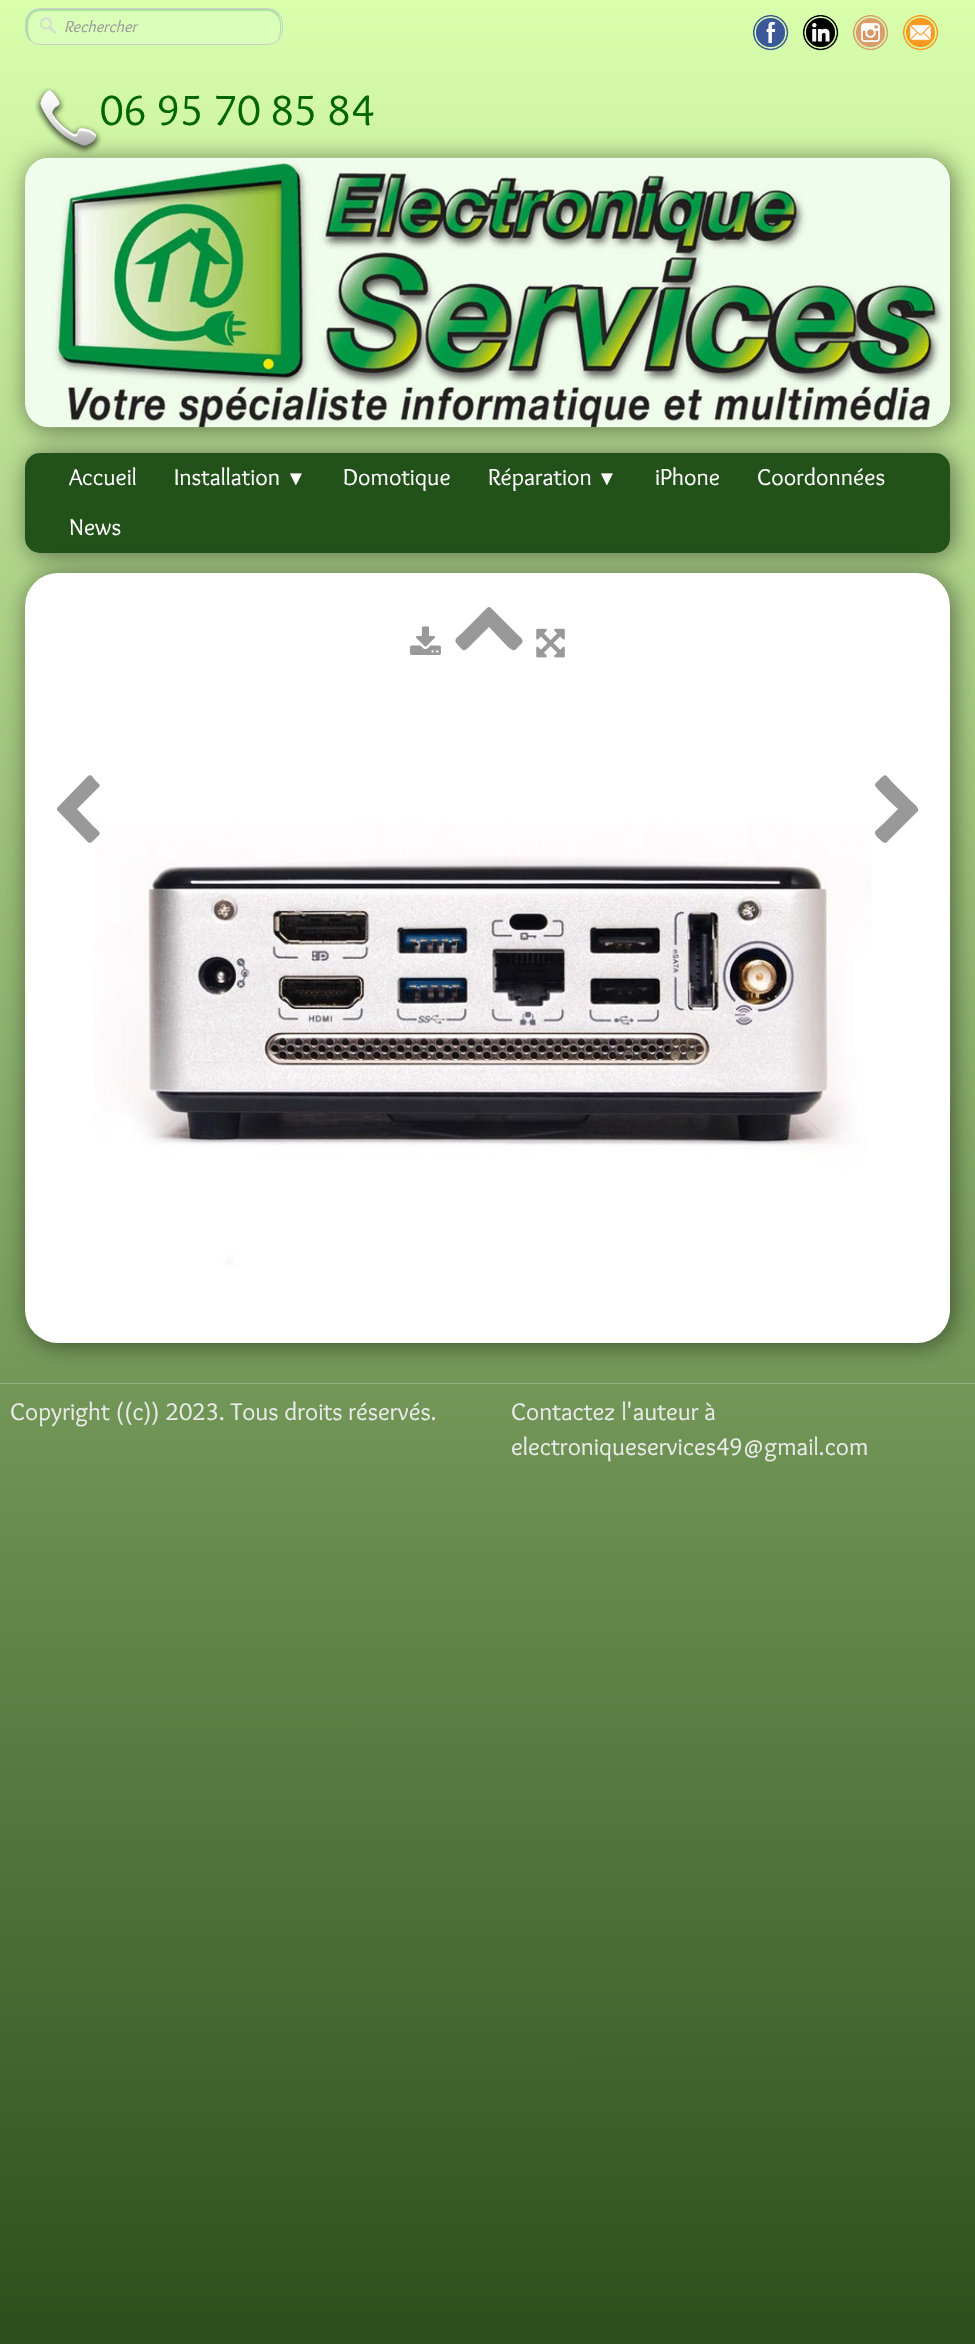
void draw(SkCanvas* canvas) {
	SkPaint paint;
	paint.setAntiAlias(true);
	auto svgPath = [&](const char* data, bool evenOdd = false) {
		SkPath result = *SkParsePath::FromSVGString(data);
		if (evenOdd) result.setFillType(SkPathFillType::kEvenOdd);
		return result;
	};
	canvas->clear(0xffffffff);
	{
		const SkColor colors[] = {0xffd9ffad, 0xff2b4f1c};
		const float stops[] = {0, 1};
		const SkPoint ends[] = {{487, 0}, {488, 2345}};
		paint.setShader(SkGradientShader::MakeLinear(ends, colors, stops, 2, SkTileMode::kClamp));
		paint.setAlpha(255);
	}
	canvas->drawRect(SkRect::MakeXYWH(0, 0, 975, 2344), paint);
	paint.setShader(nullptr);
	paint.setColor(0xffd9ffb8);
	canvas->drawRoundRect(SkRect::MakeXYWH(25, 8, 258, 37), 15, 15, paint);
	canvas->drawImageRect(SkImages::DeferredFromEncodedData(SkData::MakeFromFileName("img1.png")), SkRect::MakeXYWH(40, 17, 17, 17), SkSamplingOptions());
	paint.setColor(0xffa7e09f);
	canvas->drawPath(svgPath("M40 11H268C274 11 280 17 280 24V31C280 36 277 41 273 43C278 40 281 36 281 30V23C281 15 275 9 267 9H40C32 9 26 15 26 23V30C26 38 32 44 40 44C31 44 28 36 28 28C28 20 30 11 40 11Z"), paint);
	paint.setStroke(true);
	paint.setStrokeWidth(1);
	paint.setColor(0xffcccccc);
	canvas->drawRoundRect(SkRect::MakeXYWH(25.5, 8.5, 257, 36), 14.5, 14.5, paint);
	SkFont f1(fontMgr->matchFamilyStyle("Overlock", SkFontStyle::Italic()), 16.25);
	f1.setSubpixel(true);
	paint.setStroke(false);
	paint.setColor(0xff999999);
	canvas->drawString("Rechercher", 64, 32, f1, paint);
	canvas->drawImageRect(SkImages::DeferredFromEncodedData(SkData::MakeFromFileName("img2.png")), SkRect::MakeXYWH(752, 14, 37, 37), SkSamplingOptions());
	canvas->drawImageRect(SkImages::DeferredFromEncodedData(SkData::MakeFromFileName("img3.png")), SkRect::MakeXYWH(802, 14, 37, 37), SkSamplingOptions());
	canvas->drawImageRect(SkImages::DeferredFromEncodedData(SkData::MakeFromFileName("img4.png")), SkRect::MakeXYWH(852, 15, 37, 36), SkSamplingOptions());
	canvas->drawImageRect(SkImages::DeferredFromEncodedData(SkData::MakeFromFileName("img5.png")), SkRect::MakeXYWH(902, 14, 37, 37), SkSamplingOptions());
	canvas->drawImageRect(SkImages::DeferredFromEncodedData(SkData::MakeFromFileName("img6.png")), SkRect::MakeXYWH(35, 87, 67, 67), SkSamplingOptions());
	SkFont f2(fontMgr->matchFamilyStyle("Overlock", SkFontStyle::Normal()), 43.75);
	f2.setSubpixel(true);
	paint.setColor(0xff006600);
	canvas->drawString("06 95 70 85 84", 100, 125, f2, paint);
	paint.setColor(0x80000000);
	paint.setMaskFilter(SkMaskFilter::MakeBlur(kNormal_SkBlurStyle, 12.5));
	canvas->drawRoundRect(SkRect::MakeXYWH(28, 455, 925, 100), 15, 15, paint);
	paint.setMaskFilter(nullptr);
	paint.setColor(0xff22511a);
	canvas->drawRoundRect(SkRect::MakeXYWH(25, 453, 925, 100), 15, 15, paint);
	paint.setColor(0x80000000);
	paint.setMaskFilter(SkMaskFilter::MakeBlur(kNormal_SkBlurStyle, 12.5));
	canvas->drawRoundRect(SkRect::MakeXYWH(28, 160, 925, 270), 24, 24, paint);
	paint.setMaskFilter(nullptr);
	canvas->drawImageRect(SkImages::DeferredFromEncodedData(SkData::MakeFromFileName("img7.png")), SkRect::MakeXYWH(25, 157, 925, 271), SkSamplingOptions());
	SkFont f3(fontMgr->matchFamilyStyle("Overlock", SkFontStyle::Normal()), 23.75);
	f3.setSubpixel(true);
	paint.setColor(0xffffffff);
	canvas->drawString("Accueil", 69, 485, f3, paint);
	canvas->drawString("Installation", 174, 485, f3, paint);
	SkFont f4(fontMgr->matchFamilyStyle("Liberation Serif", SkFontStyle::Normal()), 20);
	f4.setSubpixel(true);
	canvas->drawString("▼", 286, 485, f4, paint);
	canvas->drawString("Domotique", 343, 485, f3, paint);
	canvas->drawString("Réparation", 488, 485, f3, paint);
	canvas->drawString("▼", 597, 485, f4, paint);
	canvas->drawString("iPhone", 655, 485, f3, paint);
	canvas->drawString("Coordonnées", 757, 485, f3, paint);
	canvas->drawString("News", 69, 535, f3, paint);
	paint.setColor(0xff95b181);
	canvas->drawRect(SkRect::MakeXYWH(0, 1383, 975, 1), paint);
	paint.setColor(0x80000000);
	paint.setMaskFilter(SkMaskFilter::MakeBlur(kNormal_SkBlurStyle, 12.5));
	canvas->drawRoundRect(SkRect::MakeXYWH(28, 575, 925, 770), 33, 33, paint);
	paint.setMaskFilter(nullptr);
	paint.setColor(0xffffffff);
	canvas->drawRoundRect(SkRect::MakeXYWH(25, 573, 925, 770), 33, 33, paint);
	canvas->drawImageRect(SkImages::DeferredFromEncodedData(SkData::MakeFromFileName("img8.png")), SkRect::MakeXYWH(410, 626, 31, 29), SkSamplingOptions());
	paint.setColor(0xff999999);
	canvas->drawPath(svgPath("M522 643C514 651 515 653 507 646L489 627L470 646C463 653 464 651 457 644C453 639 457 638 461 634L482 613C490 605 488 605 496 613L517 634C517 635 525 639 522 643Z"), paint);
	canvas->drawImageRect(SkImages::DeferredFromEncodedData(SkData::MakeFromFileName("img9.png")), SkRect::MakeXYWH(536, 628, 29, 30), SkSamplingOptions());
	canvas->drawImageRect(SkImages::DeferredFromEncodedData(SkData::MakeFromFileName("img10.png")), SkRect::MakeXYWH(94, 823, 778, 444), SkSamplingOptions());
	paint.setColor(0x66000000);
	canvas->drawPath(svgPath("M99 787L77 809L95 828C102 834 101 833 94 840C89 845 89 843 83 837L57 810V808L88 776C91 774 93 777 94 779L99 784C100 785 100 786 99 787Z"), paint);
	paint.setColor(0xff999999);
	canvas->drawPath(svgPath("M918 811L887 842C884 845 880 839 878 838C872 831 876 831 883 824L898 809C895 806 875 788 875 785C875 783 878 781 879 780C886 773 885 774 892 782L912 802C913 803 919 807 918 810Z"), paint);
	SkFont f5(fontMgr->matchFamilyStyle("Overlock", SkFontStyle::Normal()), 25);
	f5.setSubpixel(true);
	paint.setColor(0xffebebeb);
	canvas->drawString("Copyright ((c)) 2023. Tous droits réservés.", 10, 1420, f5, paint);
	canvas->drawString("Contactez l'auteur à", 511, 1420, f5, paint);
	canvas->drawString("electroniqueservices49@gmail.com", 511, 1455, f5, paint);
}
